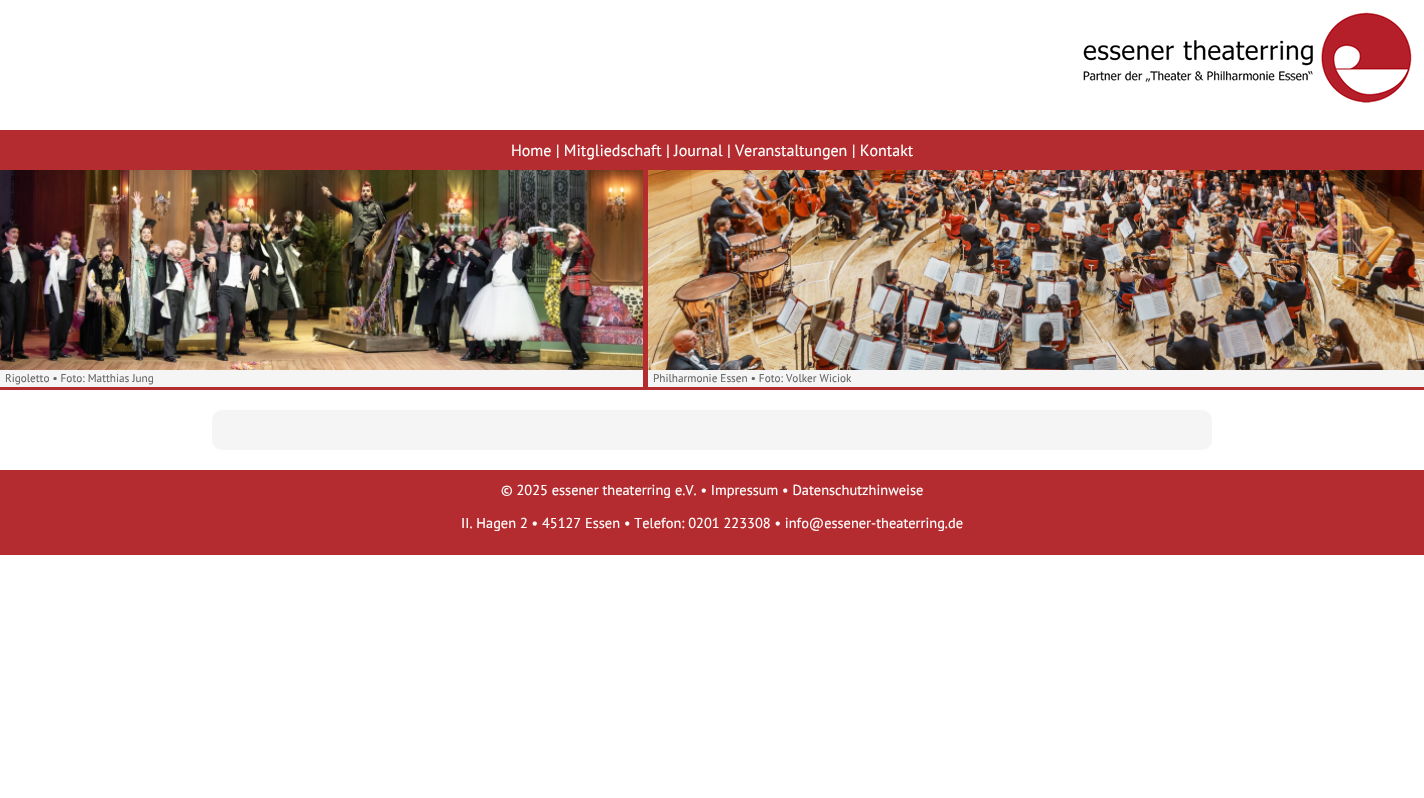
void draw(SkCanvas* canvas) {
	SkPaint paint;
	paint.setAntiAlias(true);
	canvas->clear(0xffffffff);
	canvas->drawImageRect(SkImages::DeferredFromEncodedData(SkData::MakeFromFileName("img1.png")), SkRect::MakeXYWH(1083, 12, 329, 91), SkSamplingOptions());
	paint.setColor(0xffb42c2f);
	canvas->drawRect(SkRect::MakeXYWH(0, 130, 1424, 260), paint);
	SkFont f1(fontMgr->matchFamilyStyle("PT Sans", SkFontStyle::Normal()), 16);
	f1.setSubpixel(true);
	paint.setColor(0xffffffff);
	canvas->drawString("Home | Mitgliedschaft | Journal | Veranstaltungen | Kontakt", 511, 156, f1, paint);
	canvas->drawImageRect(SkImages::DeferredFromEncodedData(SkData::MakeFromFileName("img2.png")), SkRect::MakeXYWH(0, 170, 643, 200), SkSamplingOptions());
	paint.setColor(0xfff5f5f5);
	canvas->drawRect(SkRect::MakeXYWH(0, 370, 643, 17), paint);
	SkFont f2(fontMgr->matchFamilyStyle("PT Sans", SkFontStyle::Normal()), 11.25);
	f2.setSubpixel(true);
	paint.setColor(0xff666666);
	canvas->drawString("Rigoletto • Foto: Matthias Jung", 5, 382, f2, paint);
	canvas->drawImageRect(SkImages::DeferredFromEncodedData(SkData::MakeFromFileName("img3.png")), SkRect::MakeXYWH(648, 170, 776, 200), SkSamplingOptions());
	paint.setColor(0xfff5f5f5);
	canvas->drawRect(SkRect::MakeXYWH(648, 370, 776, 17), paint);
	paint.setColor(0xff666666);
	canvas->drawString("Philharmonie Essen • Foto: Volker Wiciok", 653, 382, f2, paint);
	paint.setColor(0xfff5f5f5);
	canvas->drawRoundRect(SkRect::MakeXYWH(212, 410, 1000, 40), 10, 10, paint);
	paint.setColor(0xffb42c2f);
	canvas->drawRect(SkRect::MakeXYWH(0, 470, 1424, 85), paint);
	SkFont f3(fontMgr->matchFamilyStyle("PT Sans", SkFontStyle::Normal()), 14.4);
	f3.setSubpixel(true);
	paint.setColor(0xffffffff);
	canvas->drawString("© 2025 essener theaterring e.V. • Impressum • Datenschutzhinweise", 501, 495, f3, paint);
	canvas->drawString("II. Hagen 2 • 45127 Essen • Telefon: 0201 223308 • info@essener-theaterring.de", 461, 528, f3, paint);
}
